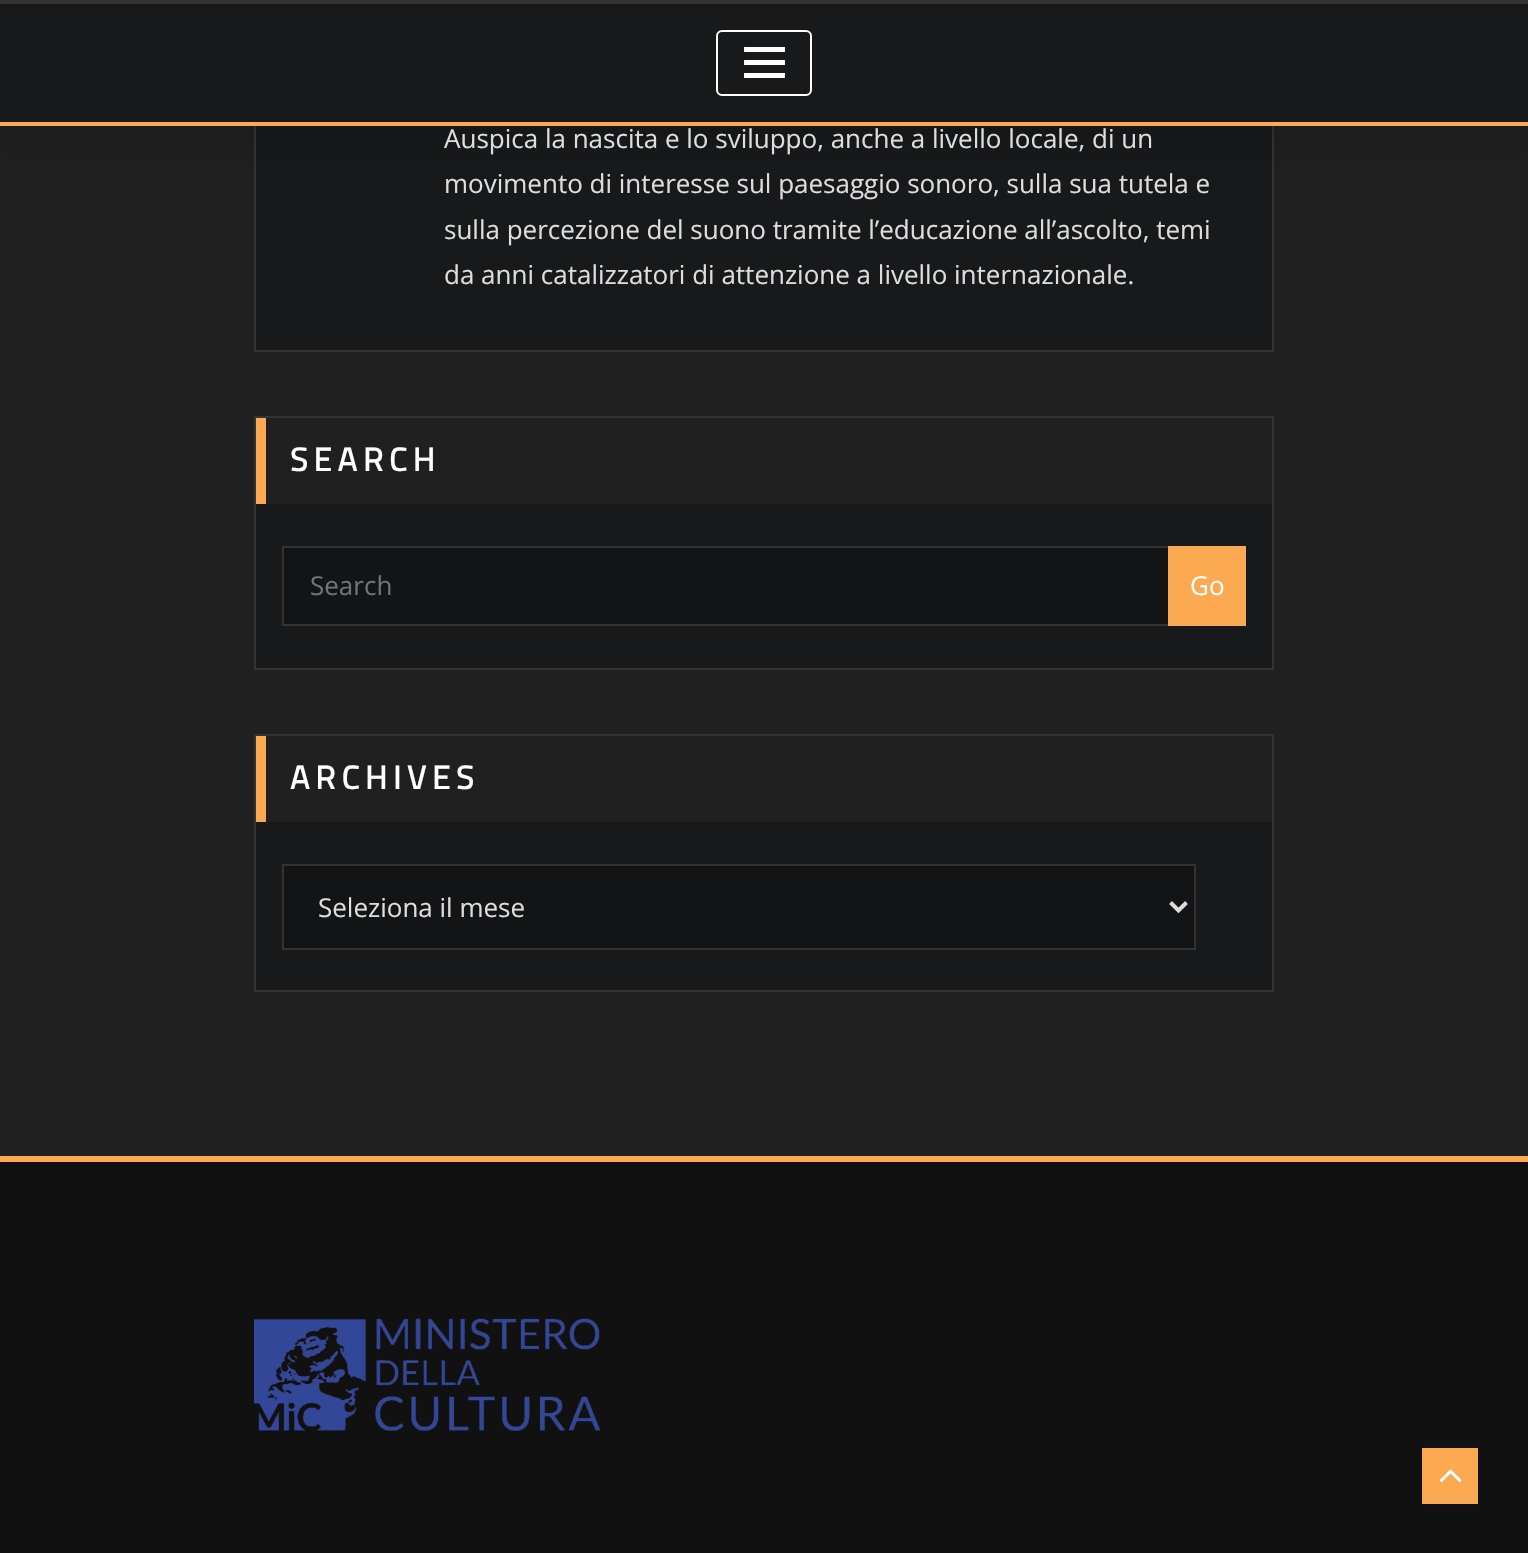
void draw(SkCanvas* canvas) {
	SkPaint paint;
	paint.setAntiAlias(true);
	auto spacedText = [&](const char* s, float x, float y, const SkFont& font, const SkPaint& ink, float letter, float word) {
		std::vector<SkGlyphID> glyphs(font.countText(s, strlen(s), SkTextEncoding::kUTF8));
		std::vector<float> xs(glyphs.size());
		font.textToGlyphs(s, strlen(s), SkTextEncoding::kUTF8, glyphs);
		font.getXPos(glyphs, xs, x);
		float extra = 0;
		for (size_t i = 0; i < glyphs.size(); i++) {
			xs[i] += extra;
			extra += letter + word * (glyphs[i] == font.unicharToGlyph(' '));
		}
		canvas->drawTextBlob(SkTextBlob::MakeFromPosHGlyphs(glyphs, xs, y, font), 0, 0, ink);
	};
	auto svgPath = [&](const char* data, bool evenOdd = false) {
		SkPath result = *SkParsePath::FromSVGString(data);
		if (evenOdd) result.setFillType(SkPathFillType::kEvenOdd);
		return result;
	};
	canvas->clear(0xff202020);
	paint.setColor(0xff18191b);
	canvas->drawRect(SkRect::MakeXYWH(256, 126, 1016, 224), paint);
	paint.setStroke(true);
	paint.setStrokeWidth(2);
	paint.setColor(0xff333333);
	canvas->drawRect(SkRect::MakeXYWH(255, -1, 1018, 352), paint);
	paint.setStroke(false);
	paint.setColor(0x1a000000);
	paint.setMaskFilter(SkMaskFilter::MakeBlur(kNormal_SkBlurStyle, 20));
	canvas->drawRect(SkRect::MakeXYWH(0, 16, 1528, 126), paint);
	paint.setMaskFilter(nullptr);
	paint.setColor(0xff18191b);
	canvas->drawRect(SkRect::MakeXYWH(0, 4, 1528, 118), paint);
	paint.setColor(0xff333333);
	canvas->drawRect(SkRect::MakeXYWH(0, 0, 1528, 4), paint);
	paint.setColor(0xfffcaa52);
	canvas->drawRect(SkRect::MakeXYWH(0, 122, 1528, 4), paint);
	paint.setStroke(true);
	paint.setColor(0xffffffff);
	canvas->drawRoundRect(SkRect::MakeXYWH(717, 31, 94, 64), 5, 5, paint);
	paint.setStrokeWidth(4.9);
	paint.setStrokeCap(SkPaint::kSquare_Cap);
	canvas->drawPath(svgPath("M746.5 49.5H782.5M746.5 62.5H782.5M746.5 75.5H782.5"), paint);
	SkFont f1(fontMgr->matchFamilyStyle("Open Sans", SkFontStyle::Normal()), 26);
	f1.setSubpixel(true);
	paint.setStroke(false);
	paint.setColor(0xffdddddd);
	canvas->drawString("Auspica la nascita e lo sviluppo, anche a livello locale, di un", 444, 148, f1, paint);
	canvas->drawString("movimento di interesse sul paesaggio sonoro, sulla sua tutela e", 444, 193, f1, paint);
	canvas->drawString("sulla percezione del suono tramite l’educazione all’ascolto, temi", 444, 239, f1, paint);
	canvas->drawString("da anni catalizzatori di attenzione a livello internazionale.", 444, 284, f1, paint);
	paint.setColor(0xff18191b);
	canvas->drawRect(SkRect::MakeXYWH(256, 504, 1016, 164), paint);
	paint.setStroke(true);
	paint.setStrokeWidth(2);
	paint.setStrokeCap(SkPaint::kButt_Cap);
	paint.setColor(0xff333333);
	canvas->drawRect(SkRect::MakeXYWH(255, 417, 1018, 252), paint);
	paint.setStroke(false);
	paint.setColor(0xfffcaa52);
	canvas->drawRect(SkRect::MakeXYWH(256, 418, 10, 86), paint);
	SkFont f2(fontMgr->matchFamilyStyle("Titillium Web", SkFontStyle::Bold()), 32.5);
	f2.setSubpixel(true);
	paint.setColor(0xffffffff);
	spacedText("SEARCH", 290, 471, f2, paint, 6, 0);
	paint.setColor(0xff131416);
	canvas->drawRect(SkRect::MakeXYWH(284, 550, 884, 74), paint);
	paint.setColor(0xff121314);
	canvas->drawRect(SkRect::MakeXYWH(284, 548, 884, 2), paint);
	paint.setStroke(true);
	paint.setColor(0xff333333);
	canvas->drawRect(SkRect::MakeXYWH(283, 547, 886, 78), paint);
	paint.setStroke(false);
	paint.setColor(0xff6c757d);
	canvas->drawString("Search", 310, 595, f1, paint);
	paint.setColor(0xfffcaa52);
	canvas->drawPath(svgPath("M1169 547H1245V625H1169Z"), paint);
	paint.setStroke(true);
	canvas->drawPath(svgPath("M1169 547H1245V625H1169Z"), paint);
	paint.setStroke(false);
	paint.setColor(0xffffffff);
	canvas->drawString("Go", 1190, 595, f1, paint);
	paint.setColor(0xff18191b);
	canvas->drawRect(SkRect::MakeXYWH(256, 822, 1016, 168), paint);
	paint.setStroke(true);
	paint.setColor(0xff333333);
	canvas->drawRect(SkRect::MakeXYWH(255, 735, 1018, 256), paint);
	paint.setStroke(false);
	paint.setColor(0xfffcaa52);
	canvas->drawRect(SkRect::MakeXYWH(256, 736, 10, 86), paint);
	paint.setColor(0xffffffff);
	spacedText("ARCHIVES", 290, 789, f2, paint, 6, 0);
	paint.setColor(0xff131416);
	canvas->drawRect(SkRect::MakeXYWH(284, 868, 910, 80), paint);
	paint.setColor(0xff121314);
	canvas->drawRect(SkRect::MakeXYWH(284, 866, 910, 2), paint);
	paint.setStroke(true);
	paint.setColor(0xff333333);
	canvas->drawRect(SkRect::MakeXYWH(283, 865, 912, 84), paint);
	paint.setStrokeWidth(4);
	paint.setColor(0xffdddddd);
	canvas->drawPath(svgPath("M1170.5 902.5L1178.5 910.5L1186.5 902.5"), paint);
	paint.setStroke(false);
	canvas->drawString("Seleziona il mese", 318, 917, f1, paint);
	paint.setColor(0xff111111);
	canvas->drawRect(SkRect::MakeXYWH(0, 1162, 1528, 391), paint);
	paint.setColor(0xfffcaa52);
	canvas->drawRect(SkRect::MakeXYWH(0, 1156, 1528, 6), paint);
	canvas->drawImageRect(SkImages::DeferredFromEncodedData(SkData::MakeFromFileName("img1.png")), SkRect::MakeXYWH(254, 1318, 346, 113), SkSamplingOptions());
	canvas->drawRect(SkRect::MakeXYWH(1422, 1448, 56, 56), paint);
	canvas->drawImageRect(SkImages::DeferredFromEncodedData(SkData::MakeFromFileName("img2.png")), SkRect::MakeXYWH(1439, 1469, 23, 14), SkSamplingOptions());
}
